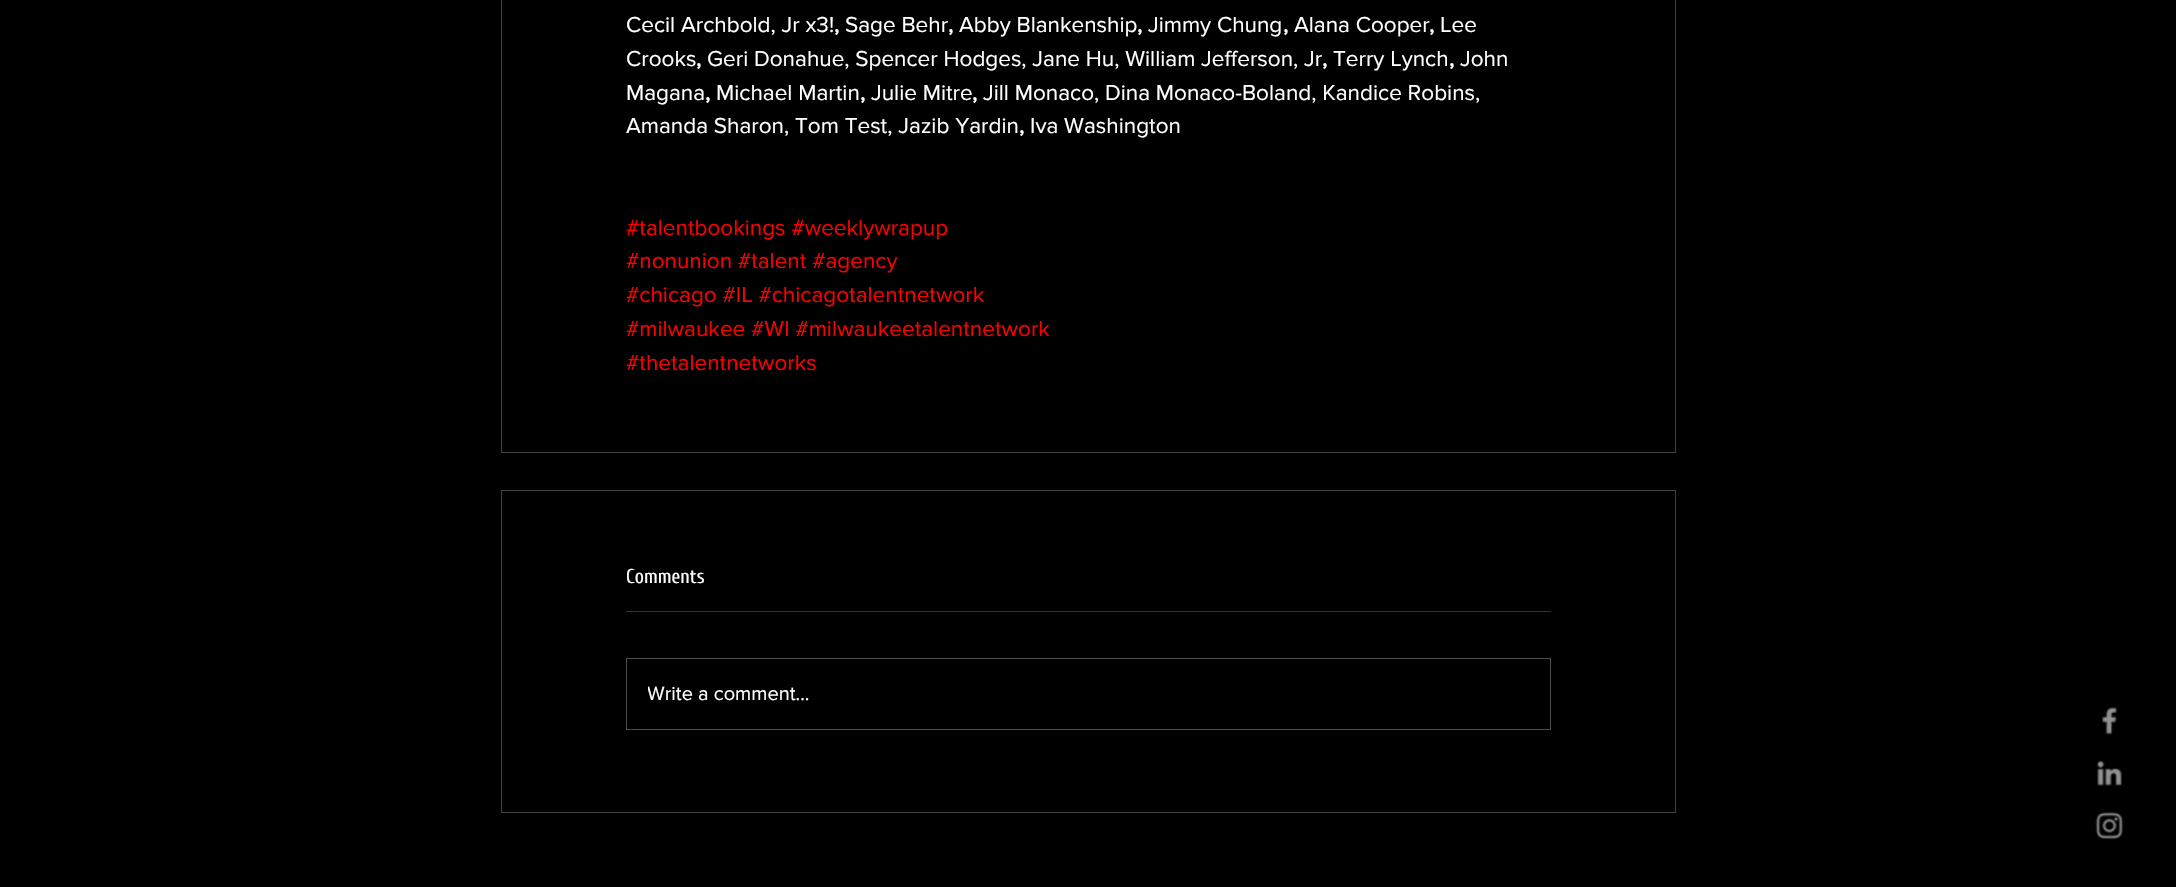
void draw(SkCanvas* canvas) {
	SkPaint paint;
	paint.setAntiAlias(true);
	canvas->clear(0xff000000);
	paint.setStroke(true);
	paint.setStrokeWidth(1);
	paint.setColor(0xff414141);
	canvas->drawRect(SkRect::MakeXYWH(501.5, -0.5, 1174, 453), paint);
	SkFont f1(fontMgr->matchFamilyStyle("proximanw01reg", SkFontStyle::Normal()), 22.5);
	f1.setSubpixel(true);
	paint.setStroke(false);
	paint.setColor(0xffffffff);
	canvas->drawString("Cecil Archbold, Jr x3!", 626, 32, f1, paint);
	SkFont f2(fontMgr->matchFamilyStyle("proximanw01reg", SkFontStyle::Bold()), 22.5);
	f2.setSubpixel(true);
	canvas->drawString(",", 834, 32, f2, paint);
	canvas->drawString("Sage Behr", 845, 32, f1, paint);
	canvas->drawString(",", 948, 32, f2, paint);
	canvas->drawString("Abby Blankenship", 959, 32, f1, paint);
	canvas->drawString(",", 1137, 32, f2, paint);
	canvas->drawString("Jimmy Chung", 1148, 32, f1, paint);
	canvas->drawString(",", 1283, 32, f2, paint);
	canvas->drawString("Alana Cooper", 1294, 32, f1, paint);
	canvas->drawString(",", 1429, 32, f2, paint);
	canvas->drawString("Lee", 1440, 32, f1, paint);
	canvas->drawString("Crooks", 626, 66, f1, paint);
	canvas->drawString(",", 696, 66, f2, paint);
	canvas->drawString("Geri Donahue, Spencer Hodges, Jane Hu, William Jefferson, Jr", 707, 66, f1, paint);
	canvas->drawString(",", 1322, 66, f2, paint);
	canvas->drawString("Terry Lynch", 1333, 66, f1, paint);
	canvas->drawString(",", 1449, 66, f2, paint);
	canvas->drawString("John", 1460, 66, f1, paint);
	canvas->drawString("Magana", 626, 100, f1, paint);
	canvas->drawString(",", 705, 100, f2, paint);
	canvas->drawString("Michael Martin", 716, 100, f1, paint);
	canvas->drawString(",", 860, 100, f2, paint);
	canvas->drawString("Julie Mitre", 871, 100, f1, paint);
	canvas->drawString(",", 972, 100, f2, paint);
	canvas->drawString("Jill Monaco, Dina Monaco-Boland, Kandice Robins,", 983, 100, f1, paint);
	canvas->drawString("Amanda Sharon, Tom Test, Jazib Yardin", 626, 133, f1, paint);
	canvas->drawString(",", 1019, 133, f2, paint);
	canvas->drawString("Iva Washington", 1030, 133, f1, paint);
	paint.setColor(0xfffc0000);
	canvas->drawString("#talentbookings #weeklywrapup", 626, 235, f1, paint);
	canvas->drawString("#nonunion #talent #agency", 626, 268, f1, paint);
	canvas->drawString("#chicago #IL #chicagotalentnetwork", 626, 302, f1, paint);
	canvas->drawString("#milwaukee #WI #milwaukeetalentnetwork", 626, 336, f1, paint);
	canvas->drawString("#thetalentnetworks", 626, 370, f1, paint);
	paint.setStroke(true);
	paint.setColor(0xff414141);
	canvas->drawRect(SkRect::MakeXYWH(501.5, 490.5, 1174, 322), paint);
	SkFont f3(fontMgr->matchFamilyStyle("Cuprum", SkFontStyle::Normal()), 20);
	f3.setSubpixel(true);
	paint.setStroke(false);
	paint.setColor(0xffffffff);
	canvas->drawString("Comments", 626, 583, f3, paint);
	paint.setColor(0xff333333);
	canvas->drawRect(SkRect::MakeXYWH(626, 611, 925, 1), paint);
	paint.setStroke(true);
	paint.setColor(0xff4d4d4d);
	canvas->drawRect(SkRect::MakeXYWH(626.5, 658.5, 924, 71), paint);
	canvas->save();
	canvas->clipRect(SkRect::MakeXYWH(648, 679, 882, 30));
	SkFont f4(fontMgr->matchFamilyStyle("proximanw01reg", SkFontStyle::Normal()), 20);
	f4.setSubpixel(true);
	paint.setStroke(false);
	paint.setColor(0xffffffff);
	canvas->drawString("Write a comment...", 647, 700, f4, paint);
	canvas->restore();
	canvas->drawImageRect(SkImages::DeferredFromEncodedData(SkData::MakeFromFileName("img1.png")), SkRect::MakeXYWH(2102, 706, 15, 29), SkSamplingOptions());
	canvas->drawImageRect(SkImages::DeferredFromEncodedData(SkData::MakeFromFileName("img2.png")), SkRect::MakeXYWH(2097, 760, 25, 26), SkSamplingOptions());
	canvas->drawImageRect(SkImages::DeferredFromEncodedData(SkData::MakeFromFileName("img3.png")), SkRect::MakeXYWH(2095, 811, 29, 29), SkSamplingOptions());
}
